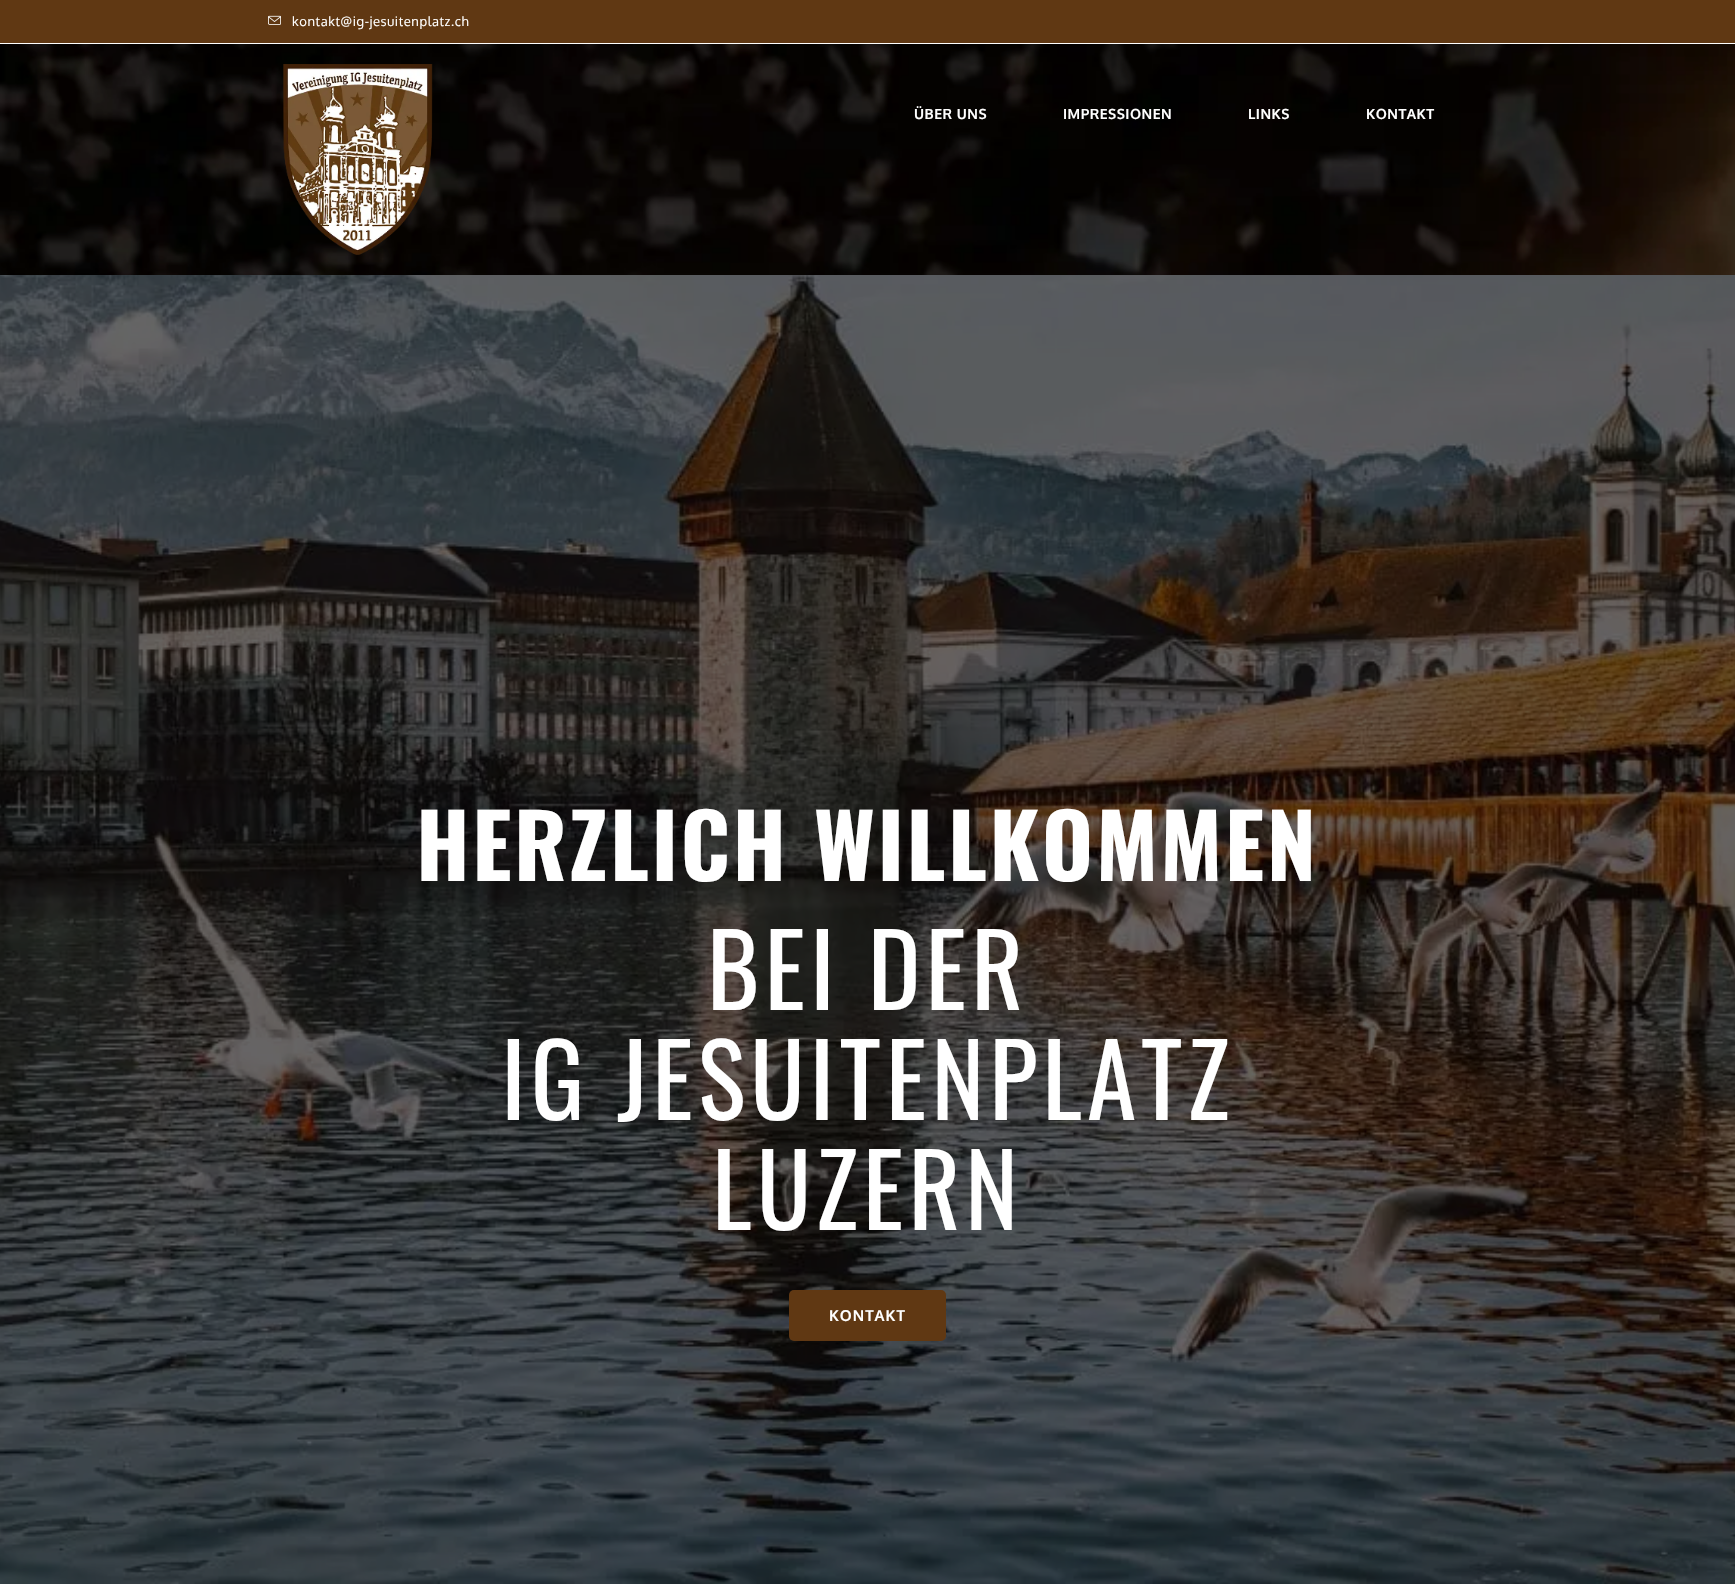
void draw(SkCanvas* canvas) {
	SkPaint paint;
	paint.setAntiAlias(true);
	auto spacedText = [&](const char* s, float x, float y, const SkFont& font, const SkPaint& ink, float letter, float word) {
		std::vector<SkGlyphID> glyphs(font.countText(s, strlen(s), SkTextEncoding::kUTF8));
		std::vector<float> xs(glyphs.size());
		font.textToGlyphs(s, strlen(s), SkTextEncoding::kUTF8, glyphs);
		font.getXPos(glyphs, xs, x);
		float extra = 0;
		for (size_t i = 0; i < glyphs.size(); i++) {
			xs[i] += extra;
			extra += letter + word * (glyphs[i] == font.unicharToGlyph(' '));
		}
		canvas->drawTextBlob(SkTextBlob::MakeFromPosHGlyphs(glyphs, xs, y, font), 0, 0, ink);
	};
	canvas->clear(0xffffffff);
	canvas->drawImageRect(SkImages::DeferredFromEncodedData(SkData::MakeFromFileName("img1.png")), SkRect::MakeXYWH(0, 44, 1735, 231), SkSamplingOptions());
	paint.setColor(0xff603813);
	canvas->drawRect(SkRect::MakeXYWH(0, 0, 1735, 43), paint);
	canvas->drawImageRect(SkImages::DeferredFromEncodedData(SkData::MakeFromFileName("img2.png")), SkRect::MakeXYWH(268, 15, 13, 10), SkSamplingOptions());
	SkFont f1(fontMgr->matchFamilyStyle("Oxygen", SkFontStyle::Normal()), 13);
	f1.setSubpixel(true);
	paint.setColor(0xffffffff);
	spacedText("kontakt@ig-jesuitenplatz.ch", 292, 26, f1, paint, 0.6, 0);
	paint.setColor(0x30000000);
	canvas->drawRect(SkRect::MakeXYWH(0, 44, 1735, 231), paint);
	canvas->drawImageRect(SkImages::DeferredFromEncodedData(SkData::MakeFromFileName("img3.png")), SkRect::MakeXYWH(283, 64, 150, 191), SkSamplingOptions());
	SkFont f2(fontMgr->matchFamilyStyle("Oxygen", SkFontStyle::Bold()), 14);
	f2.setSubpixel(true);
	paint.setColor(0xffffffff);
	spacedText("ÜBER UNS", 914, 119, f2, paint, 0.5, 0);
	spacedText("IMPRESSIONEN", 1063, 119, f2, paint, 0.5, 0);
	spacedText("LINKS", 1248, 119, f2, paint, 0.5, 0);
	spacedText("KONTAKT", 1366, 119, f2, paint, 0.5, 0);
	canvas->drawImageRect(SkImages::DeferredFromEncodedData(SkData::MakeFromFileName("img4.png")), SkRect::MakeXYWH(0, 275, 1735, 1309), SkSamplingOptions());
	SkFont f3(fontMgr->matchFamilyStyle("Oswald", SkFontStyle::Bold()), 88);
	f3.setSubpixel(true);
	spacedText("HERZLICH WILLKOMMEN", 416, 881, f3, paint, 2.5, 0);
	SkFont f4(fontMgr->matchFamilyStyle("Oswald", SkFontStyle::Normal()), 100);
	f4.setSubpixel(true);
	spacedText("BEI DER", 707, 1010, f4, paint, 5, 0);
	spacedText("IG JESUITENPLATZ", 501, 1120, f4, paint, 5, 0);
	spacedText("LUZERN", 712, 1230, f4, paint, 5, 0);
	paint.setColor(0xff603813);
	canvas->drawRoundRect(SkRect::MakeXYWH(789, 1290, 157, 51), 5, 5, paint);
	SkFont f5(fontMgr->matchFamilyStyle("Oxygen", SkFontStyle::Bold()), 15);
	f5.setSubpixel(true);
	paint.setColor(0xffffffff);
	spacedText("KONTAKT", 829, 1321, f5, paint, 1, 0);
}
